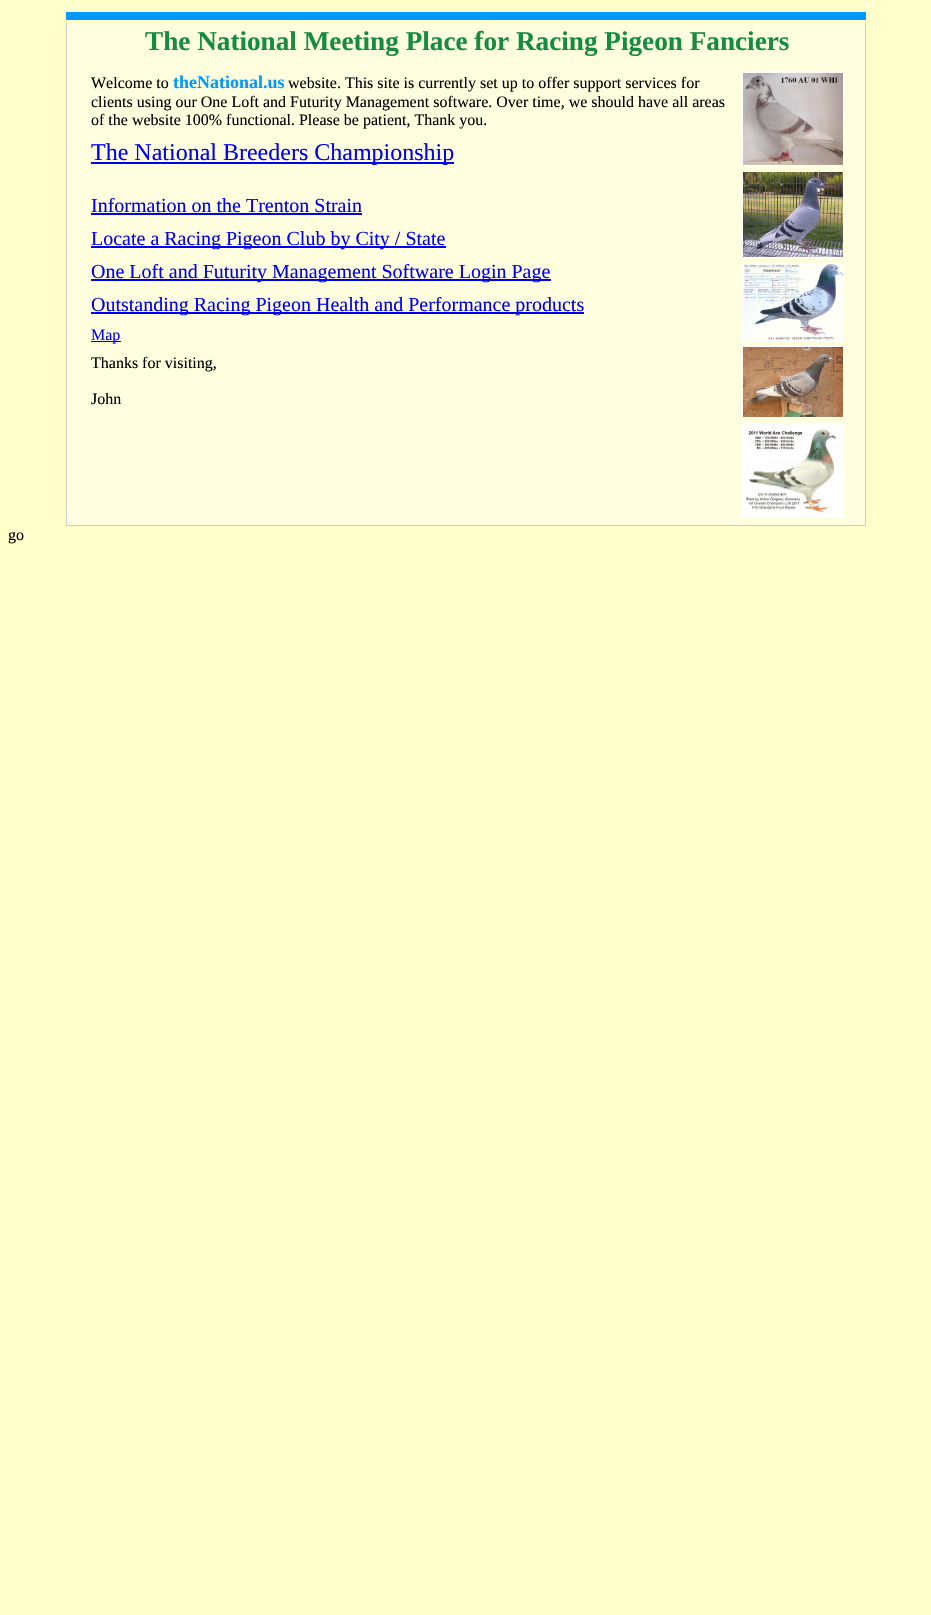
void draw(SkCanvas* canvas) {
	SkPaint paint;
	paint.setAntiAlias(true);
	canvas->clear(0xffffffcc);
	paint.setColor(0xff0099ff);
	canvas->drawRect(SkRect::MakeXYWH(66, 12, 800, 8), paint);
	paint.setColor(0xffffffff);
	canvas->drawRect(SkRect::MakeXYWH(66, 11, 800, 1), paint);
	paint.setColor(0xffffffe0);
	canvas->drawRect(SkRect::MakeXYWH(67, 23, 798, 502), paint);
	paint.setColor(0xffcccccc);
	canvas->drawRect(SkRect::MakeXYWH(865, 23, 1, 503), paint);
	canvas->drawRect(SkRect::MakeXYWH(66, 525, 800, 1), paint);
	canvas->drawRect(SkRect::MakeXYWH(66, 23, 1, 503), paint);
	SkFont f1(fontMgr->matchFamilyStyle("Liberation Serif", SkFontStyle::Bold()), 27.2);
	f1.setSubpixel(true);
	paint.setColor(0xff178b3f);
	canvas->drawString("The National Meeting Place for Racing Pigeon Fanciers", 145, 50, f1, paint);
	SkFont f2(fontMgr->matchFamilyStyle("Liberation Serif", SkFontStyle::Normal()), 16);
	f2.setSubpixel(true);
	paint.setColor(0xff000000);
	canvas->drawString("Welcome to", 91, 88, f2, paint);
	SkFont f3(fontMgr->matchFamilyStyle("Liberation Serif", SkFontStyle::Bold()), 18);
	f3.setSubpixel(true);
	paint.setColor(0xff0099ff);
	canvas->drawString("theNational.us", 173, 88, f3, paint);
	paint.setColor(0xff000000);
	canvas->drawString("website. This site is currently set up to offer support services for", 288, 88, f2, paint);
	canvas->drawString("clients using our One Loft and Futurity Management software. Over time, we should have all areas", 91, 107, f2, paint);
	canvas->drawString("of the website 100% functional. Please be patient, Thank you.", 91, 125, f2, paint);
	paint.setStroke(true);
	paint.setStrokeWidth(1);
	paint.setColor(0xffffffff);
	canvas->drawRect(SkRect::MakeXYWH(742.5, 72.5, 101, 93), paint);
	canvas->drawImageRect(SkImages::DeferredFromEncodedData(SkData::MakeFromFileName("img1.png")), SkRect::MakeXYWH(743, 73, 100, 92), SkSamplingOptions());
	paint.setStroke(false);
	paint.setColor(0xff0000ee);
	canvas->drawRect(SkRect::MakeXYWH(91, 162, 363, 2), paint);
	SkFont f4(fontMgr->matchFamilyStyle("Liberation Serif", SkFontStyle::Normal()), 24);
	f4.setSubpixel(true);
	canvas->drawString("The National Breeders Championship", 91, 160, f4, paint);
	SkFont f5(fontMgr->matchFamilyStyle("Liberation Serif", SkFontStyle::Normal()), 20);
	f5.setSubpixel(true);
	canvas->drawString("Information on the Trenton Strain", 91, 212, f5, paint);
	canvas->drawRect(SkRect::MakeXYWH(91, 213, 271, 2), paint);
	paint.setStroke(true);
	paint.setColor(0xffffffff);
	canvas->drawRect(SkRect::MakeXYWH(742.5, 171.5, 101, 86), paint);
	canvas->drawImageRect(SkImages::DeferredFromEncodedData(SkData::MakeFromFileName("img2.png")), SkRect::MakeXYWH(743, 172, 100, 85), SkSamplingOptions());
	paint.setStroke(false);
	paint.setColor(0xff0000ee);
	canvas->drawRect(SkRect::MakeXYWH(91, 246, 355, 2), paint);
	canvas->drawString("Locate a Racing Pigeon Club by City / State", 91, 245, f5, paint);
	canvas->drawRect(SkRect::MakeXYWH(91, 279, 460, 2), paint);
	canvas->drawString("One Loft and Futurity Management Software Login Page", 91, 278, f5, paint);
	paint.setStroke(true);
	paint.setColor(0xffffffff);
	canvas->drawRect(SkRect::MakeXYWH(742.5, 263.5, 101, 77), paint);
	canvas->drawImageRect(SkImages::DeferredFromEncodedData(SkData::MakeFromFileName("img3.png")), SkRect::MakeXYWH(743, 264, 100, 76), SkSamplingOptions());
	paint.setStroke(false);
	paint.setColor(0xff0000ee);
	canvas->drawRect(SkRect::MakeXYWH(91, 312, 493, 2), paint);
	canvas->drawString("Outstanding Racing Pigeon Health and Performance products", 91, 311, f5, paint);
	canvas->drawRect(SkRect::MakeXYWH(91, 341, 30, 1), paint);
	canvas->drawString("Map", 91, 340, f2, paint);
	paint.setColor(0xff000000);
	canvas->drawString("Thanks for visiting,", 91, 368, f2, paint);
	canvas->drawString("John", 91, 404, f2, paint);
	paint.setStroke(true);
	paint.setColor(0xffffffff);
	canvas->drawRect(SkRect::MakeXYWH(742.5, 346.5, 101, 71), paint);
	canvas->drawImageRect(SkImages::DeferredFromEncodedData(SkData::MakeFromFileName("img4.png")), SkRect::MakeXYWH(743, 347, 100, 70), SkSamplingOptions());
	canvas->drawRect(SkRect::MakeXYWH(742.5, 423.5, 101, 93), paint);
	canvas->drawImageRect(SkImages::DeferredFromEncodedData(SkData::MakeFromFileName("img5.png")), SkRect::MakeXYWH(743, 424, 100, 92), SkSamplingOptions());
	paint.setStroke(false);
	paint.setColor(0xff000000);
	canvas->drawString("go", 8, 540, f2, paint);
}
